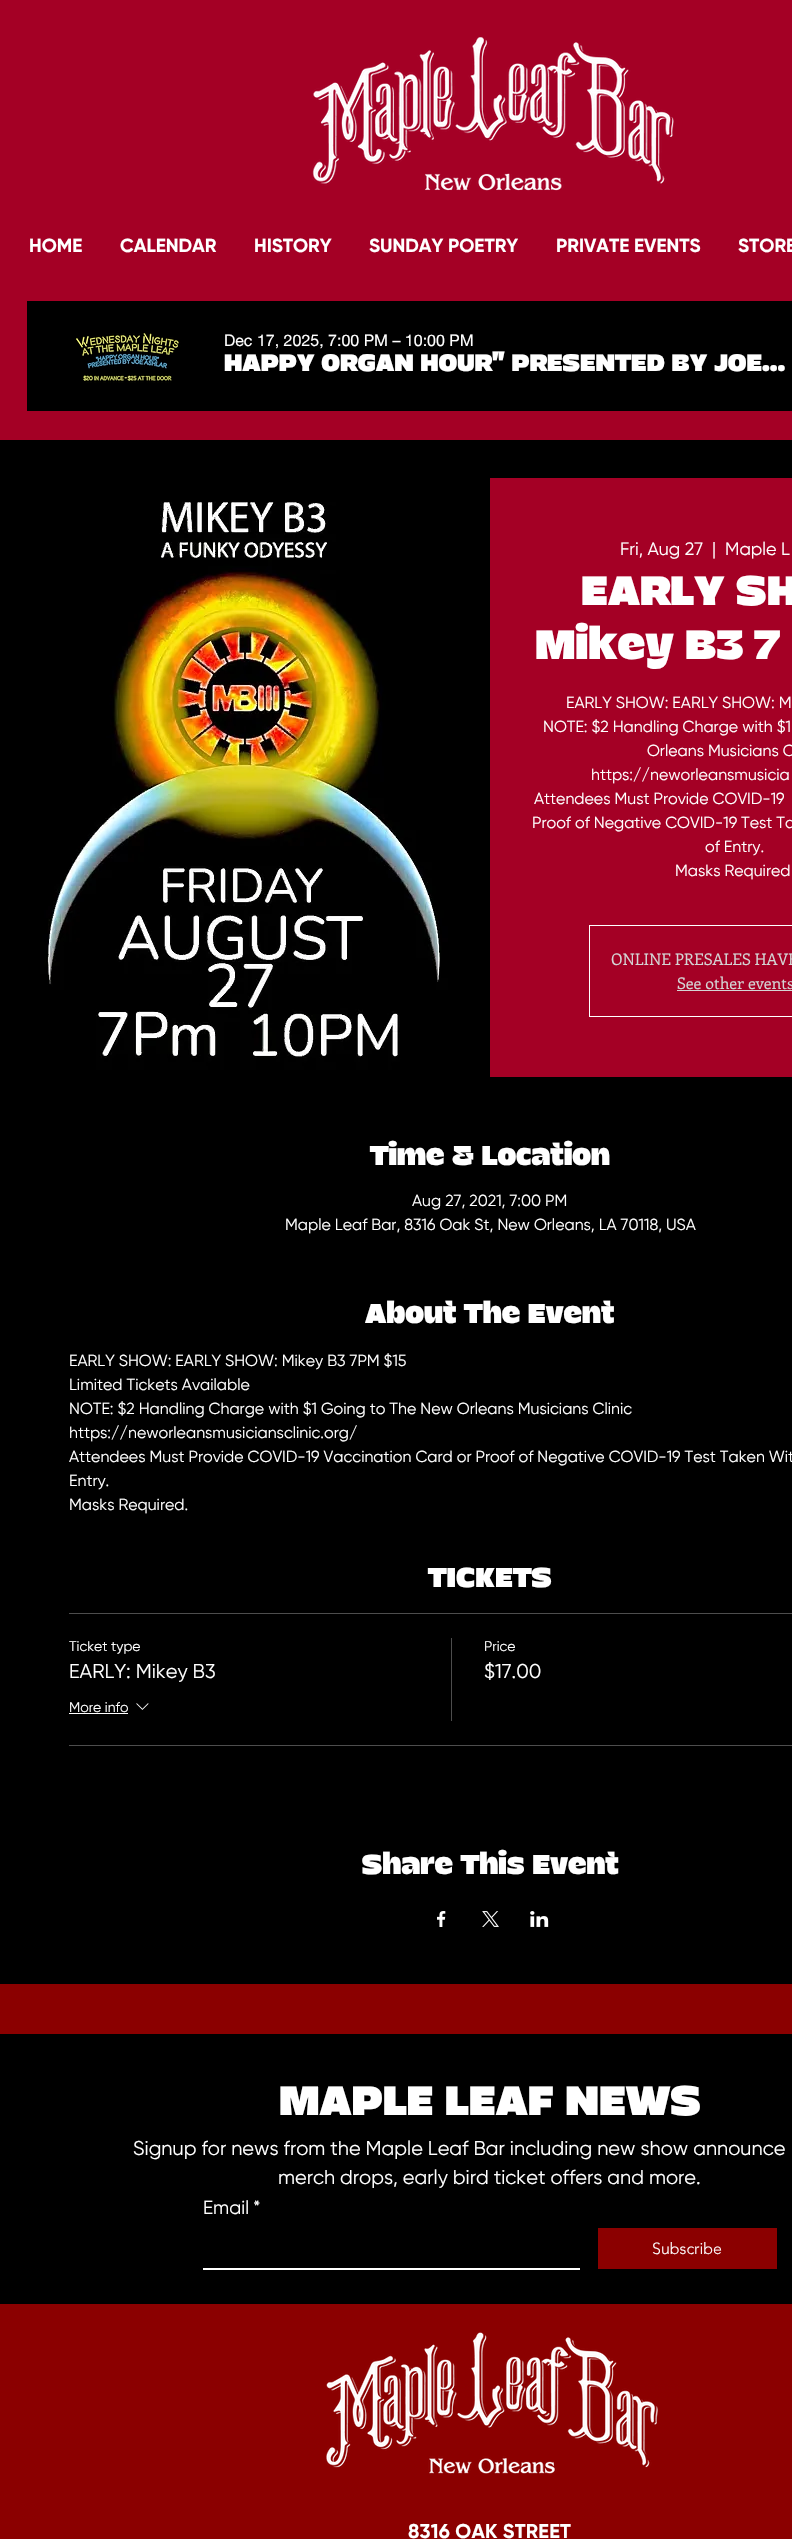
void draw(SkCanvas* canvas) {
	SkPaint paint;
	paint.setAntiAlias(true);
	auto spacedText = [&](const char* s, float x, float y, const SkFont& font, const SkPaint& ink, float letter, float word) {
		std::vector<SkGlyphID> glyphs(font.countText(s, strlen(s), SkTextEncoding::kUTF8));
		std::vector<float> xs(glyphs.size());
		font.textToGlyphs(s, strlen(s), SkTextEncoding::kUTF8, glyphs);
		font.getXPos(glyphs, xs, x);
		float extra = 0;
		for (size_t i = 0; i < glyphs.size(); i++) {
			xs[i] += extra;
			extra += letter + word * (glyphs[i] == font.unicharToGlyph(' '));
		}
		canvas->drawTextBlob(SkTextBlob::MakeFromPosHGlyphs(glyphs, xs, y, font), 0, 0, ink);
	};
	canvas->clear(0xffa40025);
	canvas->drawImageRect(SkImages::DeferredFromEncodedData(SkData::MakeFromFileName("img1.png")), SkRect::MakeXYWH(312, 37, 362, 154), SkSamplingOptions());
	SkFont f1(fontMgr->matchFamilyStyle("Gilroy", SkFontStyle::Bold()), 19);
	f1.setSubpixel(true);
	paint.setColor(0xffffffff);
	canvas->drawString("HOME", 29, 252, f1, paint);
	canvas->drawString("CALENDAR", 120, 252, f1, paint);
	canvas->drawString("HISTORY", 254, 252, f1, paint);
	canvas->drawString("SUNDAY POETRY", 369, 252, f1, paint);
	canvas->drawString("PRIVATE EVENTS", 556, 252, f1, paint);
	canvas->drawString("STORE", 738, 252, f1, paint);
	paint.setColor(0xff000000);
	canvas->drawRect(SkRect::MakeXYWH(27, 301, 765, 110), paint);
	canvas->drawImageRect(SkImages::DeferredFromEncodedData(SkData::MakeFromFileName("img2.png")), SkRect::MakeXYWH(57, 316, 142, 80), SkSamplingOptions());
	SkFont f2(fontMgr->matchFamilyStyle("helvetica neue", SkFontStyle::Normal()), 16);
	f2.setSubpixel(true);
	paint.setColor(0xffffffff);
	canvas->drawString("Dec 17, 2025, 7:00 PM – 10:00 PM", 224, 346, f2, paint);
	SkFont f3(fontMgr->matchFamilyStyle("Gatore", SkFontStyle::Normal()), 26);
	f3.setSubpixel(true);
	canvas->drawString("HAPPY ORGAN HOUR\" PRESENTED BY JOE…", 224, 371, f3, paint);
	paint.setColor(0xff000000);
	canvas->drawRect(SkRect::MakeXYWH(0, 440, 792, 1544), paint);
	canvas->drawImageRect(SkImages::DeferredFromEncodedData(SkData::MakeFromFileName("img3.png")), SkRect::MakeXYWH(0, 478, 490, 599), SkSamplingOptions());
	paint.setColor(0xffa40025);
	canvas->drawRect(SkRect::MakeXYWH(490, 478, 302, 599), paint);
	SkFont f4(fontMgr->matchFamilyStyle("Gilroy", SkFontStyle::Normal()), 18);
	f4.setSubpixel(true);
	paint.setColor(0xffffffff);
	canvas->drawString("Fri, Aug 27", 620, 555, f4, paint);
	canvas->drawString("|", 712, 555, f4, paint);
	canvas->drawString("Maple L", 725, 555, f4, paint);
	SkFont f5(fontMgr->matchFamilyStyle("Gatore", SkFontStyle::Normal()), 45);
	f5.setSubpixel(true);
	canvas->drawString("EARLY SH", 581, 605, f5, paint);
	canvas->drawString("Mikey B3 7", 535, 659, f5, paint);
	SkFont f6(fontMgr->matchFamilyStyle("Gilroy", SkFontStyle::Normal()), 16);
	f6.setSubpixel(true);
	canvas->drawString("EARLY SHOW: EARLY SHOW: M", 566, 708, f6, paint);
	canvas->drawString("NOTE: $2 Handling Charge with $1", 543, 732, f6, paint);
	canvas->drawString("Orleans Musicians C", 647, 756, f6, paint);
	canvas->drawString("https://neworleansmusicia", 591, 780, f6, paint);
	canvas->drawString("Attendees Must Provide COVID-19", 534, 804, f6, paint);
	canvas->drawString("Proof of Negative COVID-19 Test Ta", 532, 828, f6, paint);
	canvas->drawString("of Entry.", 705, 852, f6, paint);
	canvas->drawString("Masks Required", 675, 876, f6, paint);
	paint.setStroke(true);
	paint.setStrokeWidth(1);
	canvas->drawRect(SkRect::MakeXYWH(589.5, 925.5, 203, 91), paint);
	SkFont f7(fontMgr->matchFamilyStyle("Enriqueta", SkFontStyle::Normal()), 16);
	f7.setSubpixel(true);
	paint.setStroke(false);
	paint.setColor(0xffd4d4d4);
	canvas->drawString("ONLINE PRESALES HAVE", 611, 965, f7, paint);
	canvas->drawString("See other events", 677, 989, f7, paint);
	canvas->drawRect(SkRect::MakeXYWH(677, 990, 115, 1), paint);
	SkFont f8(fontMgr->matchFamilyStyle("Gatore", SkFontStyle::Normal()), 30);
	f8.setSubpixel(true);
	paint.setColor(0xffffffff);
	canvas->drawString("Time & Location", 370, 1165, f8, paint);
	canvas->drawString("Aug 27, 2021, 7:00 PM", 412, 1206, f6, paint);
	canvas->drawString("Maple Leaf Bar, 8316 Oak St, New Orleans, LA 70118, USA", 285, 1230, f6, paint);
	canvas->drawString("About The Event", 365, 1323, f8, paint);
	canvas->drawString("EARLY SHOW: EARLY SHOW: Mikey B3 7PM $15", 69, 1366, f6, paint);
	canvas->drawString("Limited Tickets Available", 69, 1390, f6, paint);
	canvas->drawString("NOTE: $2 Handling Charge with $1 Going to The New Orleans Musicians Clinic", 69, 1414, f6, paint);
	canvas->drawString("https://neworleansmusiciansclinic.org/", 69, 1438, f6, paint);
	canvas->drawString("Attendees Must Provide COVID-19 Vaccination Card or Proof of Negative COVID-19 Test Taken Wit", 69, 1462, f6, paint);
	canvas->drawString("Entry.", 69, 1486, f6, paint);
	canvas->drawString("Masks Required.", 69, 1510, f6, paint);
	canvas->drawString("TICKETS", 428, 1587, f8, paint);
	paint.setColor(0xff4d4d4d);
	canvas->drawRect(SkRect::MakeXYWH(69, 1613, 723, 1), paint);
	canvas->drawRect(SkRect::MakeXYWH(69, 1745, 723, 1), paint);
	SkFont f9(fontMgr->matchFamilyStyle("Gilroy", SkFontStyle::Normal()), 14);
	f9.setSubpixel(true);
	paint.setColor(0xffffffff);
	canvas->drawString("Ticket type", 69, 1651, f9, paint);
	SkFont f10(fontMgr->matchFamilyStyle("Gilroy", SkFontStyle::Normal()), 20);
	f10.setSubpixel(true);
	canvas->drawString("EARLY: Mikey B3", 69, 1678, f10, paint);
	canvas->drawString("More info", 69, 1712, f9, paint);
	canvas->drawRect(SkRect::MakeXYWH(69, 1713, 59, 1), paint);
	canvas->drawImageRect(SkImages::DeferredFromEncodedData(SkData::MakeFromFileName("img4.png")), SkRect::MakeXYWH(136, 1703, 13, 7), SkSamplingOptions());
	paint.setColor(0xff4d4d4d);
	canvas->drawRect(SkRect::MakeXYWH(451, 1638, 1, 83), paint);
	paint.setColor(0xffffffff);
	canvas->drawString("Price", 484, 1651, f9, paint);
	canvas->drawString("$17.00", 484, 1678, f10, paint);
	canvas->drawString("Share This Event", 362, 1874, f8, paint);
	canvas->drawImageRect(SkImages::DeferredFromEncodedData(SkData::MakeFromFileName("img5.png")), SkRect::MakeXYWH(437, 1911, 9, 16), SkSamplingOptions());
	canvas->drawImageRect(SkImages::DeferredFromEncodedData(SkData::MakeFromFileName("img6.png")), SkRect::MakeXYWH(482, 1911, 17, 16), SkSamplingOptions());
	canvas->drawImageRect(SkImages::DeferredFromEncodedData(SkData::MakeFromFileName("img7.png")), SkRect::MakeXYWH(530, 1911, 19, 16), SkSamplingOptions());
	paint.setColor(0xff8b0000);
	canvas->drawRect(SkRect::MakeXYWH(0, 1984, 792, 555), paint);
	paint.setColor(0xff000000);
	canvas->drawRect(SkRect::MakeXYWH(0, 2034, 792, 270), paint);
	paint.setColor(0xffffffff);
	canvas->drawString("MAPLE LEAF NEWS", 279, 2115, f5, paint);
	canvas->drawString("Signup for news from the Maple Leaf Bar including new show announce", 133, 2155, f10, paint);
	canvas->drawString("merch drops, early bird ticket offers and more.", 278, 2184, f10, paint);
	SkFont f11(fontMgr->matchFamilyStyle("Gilroy", SkFontStyle::Normal()), 19);
	f11.setSubpixel(true);
	canvas->drawString("Email", 203, 2214, f11, paint);
	canvas->drawString("*", 253, 2214, f11, paint);
	paint.setColor(0xff8b0000);
	canvas->drawRect(SkRect::MakeXYWH(598, 2228, 179, 41), paint);
	SkFont f12(fontMgr->matchFamilyStyle("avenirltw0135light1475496", SkFontStyle(300, SkFontStyle::kNormal_Width, SkFontStyle::kUpright_Slant)), 16);
	f12.setSubpixel(true);
	paint.setColor(0xffffffff);
	canvas->drawString("Subscribe", 652, 2254, f12, paint);
	paint.setColor(0xfffffffe);
	canvas->drawRect(SkRect::MakeXYWH(203, 2268, 377, 2), paint);
	canvas->drawImageRect(SkImages::DeferredFromEncodedData(SkData::MakeFromFileName("img8.png")), SkRect::MakeXYWH(326, 2332, 332, 142), SkSamplingOptions());
	SkFont f13(fontMgr->matchFamilyStyle("Gilroy", SkFontStyle::Bold()), 20);
	f13.setSubpixel(true);
	paint.setColor(0xffffffff);
	spacedText("8316 OAK STREET", 408, 2538, f13, paint, 0.25, 0);
}
